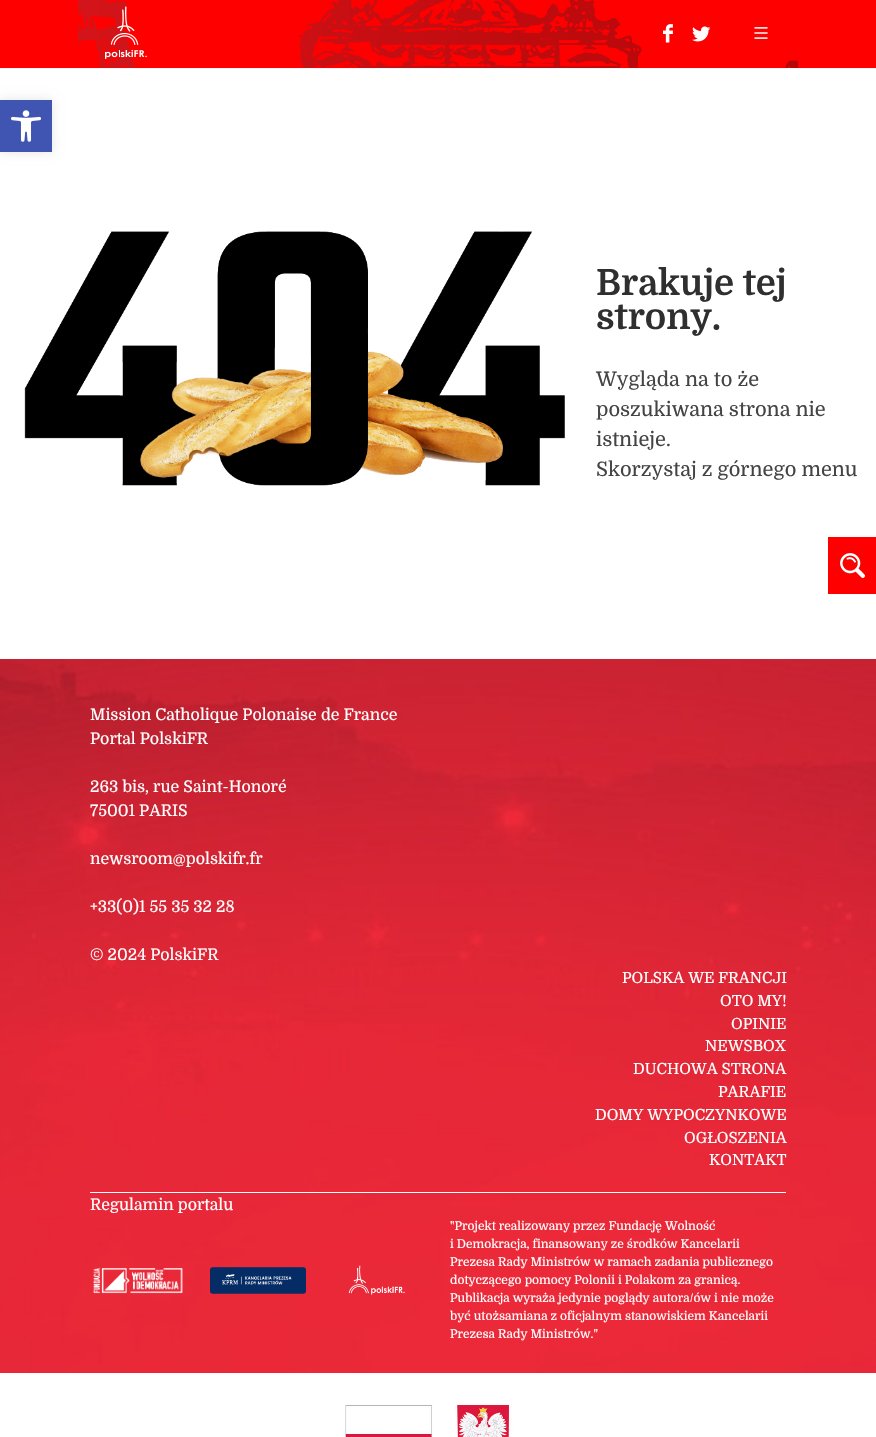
void draw(SkCanvas* canvas) {
	SkPaint paint;
	paint.setAntiAlias(true);
	canvas->clear(0xffffffff);
	paint.setColor(0x1a000000);
	paint.setMaskFilter(SkMaskFilter::MakeBlur(kNormal_SkBlurStyle, 5));
	canvas->drawRect(SkRect::MakeXYWH(0, 100, 52, 52), paint);
	paint.setMaskFilter(nullptr);
	paint.setColor(0xff4054b2);
	canvas->drawRect(SkRect::MakeXYWH(0, 100, 52, 52), paint);
	canvas->drawImageRect(SkImages::DeferredFromEncodedData(SkData::MakeFromFileName("img1.png")), SkRect::MakeXYWH(11, 110, 30, 32), SkSamplingOptions());
	paint.setColor(0xffff0000);
	canvas->drawRect(SkRect::MakeXYWH(0, 0, 876, 68), paint);
	paint.setColor(0xfff5f5f5);
	canvas->drawRect(SkRect::MakeXYWH(0, 68, 876, 1), paint);
	canvas->drawImageRect(SkImages::DeferredFromEncodedData(SkData::MakeFromFileName("img2.png")), SkRect::MakeXYWH(78, 0, 720, 68), SkSamplingOptions());
	canvas->drawImageRect(SkImages::DeferredFromEncodedData(SkData::MakeFromFileName("img3.png")), SkRect::MakeXYWH(105, 6, 42, 53), SkSamplingOptions());
	canvas->drawImageRect(SkImages::DeferredFromEncodedData(SkData::MakeFromFileName("img4.png")), SkRect::MakeXYWH(663, 24, 10, 19), SkSamplingOptions());
	canvas->drawImageRect(SkImages::DeferredFromEncodedData(SkData::MakeFromFileName("img5.png")), SkRect::MakeXYWH(692, 26, 19, 16), SkSamplingOptions());
	canvas->drawImageRect(SkImages::DeferredFromEncodedData(SkData::MakeFromFileName("img6.png")), SkRect::MakeXYWH(754, 27, 14, 12), SkSamplingOptions());
	canvas->drawImageRect(SkImages::DeferredFromEncodedData(SkData::MakeFromFileName("img7.png")), SkRect::MakeXYWH(24, 231, 541, 255), SkSamplingOptions());
	SkFont f1(fontMgr->matchFamilyStyle("Domine", SkFontStyle::Bold()), 36);
	f1.setSubpixel(true);
	paint.setColor(0xff2f2f2f);
	canvas->drawString("Brakuje tej", 596, 295, f1, paint);
	canvas->drawString("strony.", 596, 329, f1, paint);
	SkFont f2(fontMgr->matchFamilyStyle("Domine", SkFontStyle::Normal()), 20);
	f2.setSubpixel(true);
	paint.setColor(0xff444444);
	canvas->drawString("Wygląda na to że", 596, 386, f2, paint);
	canvas->drawString("poszukiwana strona nie", 596, 416, f2, paint);
	canvas->drawString("istnieje.", 596, 446, f2, paint);
	canvas->drawString("Skorzystaj z górnego menu", 596, 476, f2, paint);
	canvas->drawImageRect(SkImages::DeferredFromEncodedData(SkData::MakeFromFileName("img8.png")), SkRect::MakeXYWH(0, 659, 876, 714), SkSamplingOptions());
	SkFont f3(fontMgr->matchFamilyStyle("Domine", SkFontStyle::Normal()), 16);
	f3.setSubpixel(true);
	paint.setColor(0xffffffff);
	canvas->drawString("Mission Catholique Polonaise de France", 90, 720, f3, paint);
	canvas->drawString("Portal PolskiFR", 90, 744, f3, paint);
	canvas->drawString("263 bis, rue Saint-Honoré", 90, 792, f3, paint);
	canvas->drawString("75001 PARIS", 90, 816, f3, paint);
	canvas->drawString("newsroom@polskifr.fr", 90, 864, f3, paint);
	canvas->drawString("+33(0)1 55 35 32 28", 90, 912, f3, paint);
	canvas->drawString("© 2024 PolskiFR", 90, 960, f3, paint);
	SkFont f4(fontMgr->matchFamilyStyle("Domine", SkFontStyle::Normal()), 15.25);
	f4.setSubpixel(true);
	canvas->drawString("POLSKA WE FRANCJI", 622, 983, f4, paint);
	canvas->drawString("OTO MY!", 720, 1006, f4, paint);
	canvas->drawString("OPINIE", 731, 1029, f4, paint);
	canvas->drawString("NEWSBOX", 705, 1051, f4, paint);
	canvas->drawString("DUCHOWA STRONA", 633, 1074, f4, paint);
	canvas->drawString("PARAFIE", 718, 1097, f4, paint);
	canvas->drawString("DOMY WYPOCZYNKOWE", 595, 1120, f4, paint);
	canvas->drawString("OGŁOSZENIA", 684, 1143, f4, paint);
	canvas->drawString("KONTAKT", 709, 1165, f4, paint);
	canvas->drawRect(SkRect::MakeXYWH(90, 1192, 696, 1), paint);
	canvas->drawString("Regulamin portalu", 90, 1210, f3, paint);
	canvas->drawImageRect(SkImages::DeferredFromEncodedData(SkData::MakeFromFileName("img9.png")), SkRect::MakeXYWH(93, 1268, 90, 26), SkSamplingOptions());
	canvas->drawImageRect(SkImages::DeferredFromEncodedData(SkData::MakeFromFileName("img10.png")), SkRect::MakeXYWH(210, 1267, 96, 27), SkSamplingOptions());
	canvas->drawImageRect(SkImages::DeferredFromEncodedData(SkData::MakeFromFileName("img11.png")), SkRect::MakeXYWH(348, 1265, 57, 30), SkSamplingOptions());
	SkFont f5(fontMgr->matchFamilyStyle("Domine", SkFontStyle::Normal()), 12);
	f5.setSubpixel(true);
	canvas->drawString("\"Projekt realizowany przez Fundację Wolność", 450, 1230, f5, paint);
	canvas->drawString("i Demokracja, finansowany ze środków Kancelarii", 450, 1248, f5, paint);
	canvas->drawString("Prezesa Rady Ministrów w ramach zadania publicznego", 450, 1266, f5, paint);
	canvas->drawString("dotyczącego pomocy Polonii i Polakom za granicą.", 450, 1284, f5, paint);
	canvas->drawString("Publikacja wyraża jedynie poglądy autora/ów i nie może", 450, 1302, f5, paint);
	canvas->drawString("być utożsamiana z oficjalnym stanowiskiem Kancelarii", 450, 1320, f5, paint);
	canvas->drawString("Prezesa Rady Ministrów.\"", 450, 1338, f5, paint);
	paint.setColor(0xffff0000);
	canvas->drawRect(SkRect::MakeXYWH(828, 537, 48, 57), paint);
	canvas->drawImageRect(SkImages::DeferredFromEncodedData(SkData::MakeFromFileName("img12.png")), SkRect::MakeXYWH(840, 553, 25, 25), SkSamplingOptions());
	canvas->drawImageRect(SkImages::DeferredFromEncodedData(SkData::MakeFromFileName("img13.png")), SkRect::MakeXYWH(345, 1404, 168, 33), SkSamplingOptions());
}
